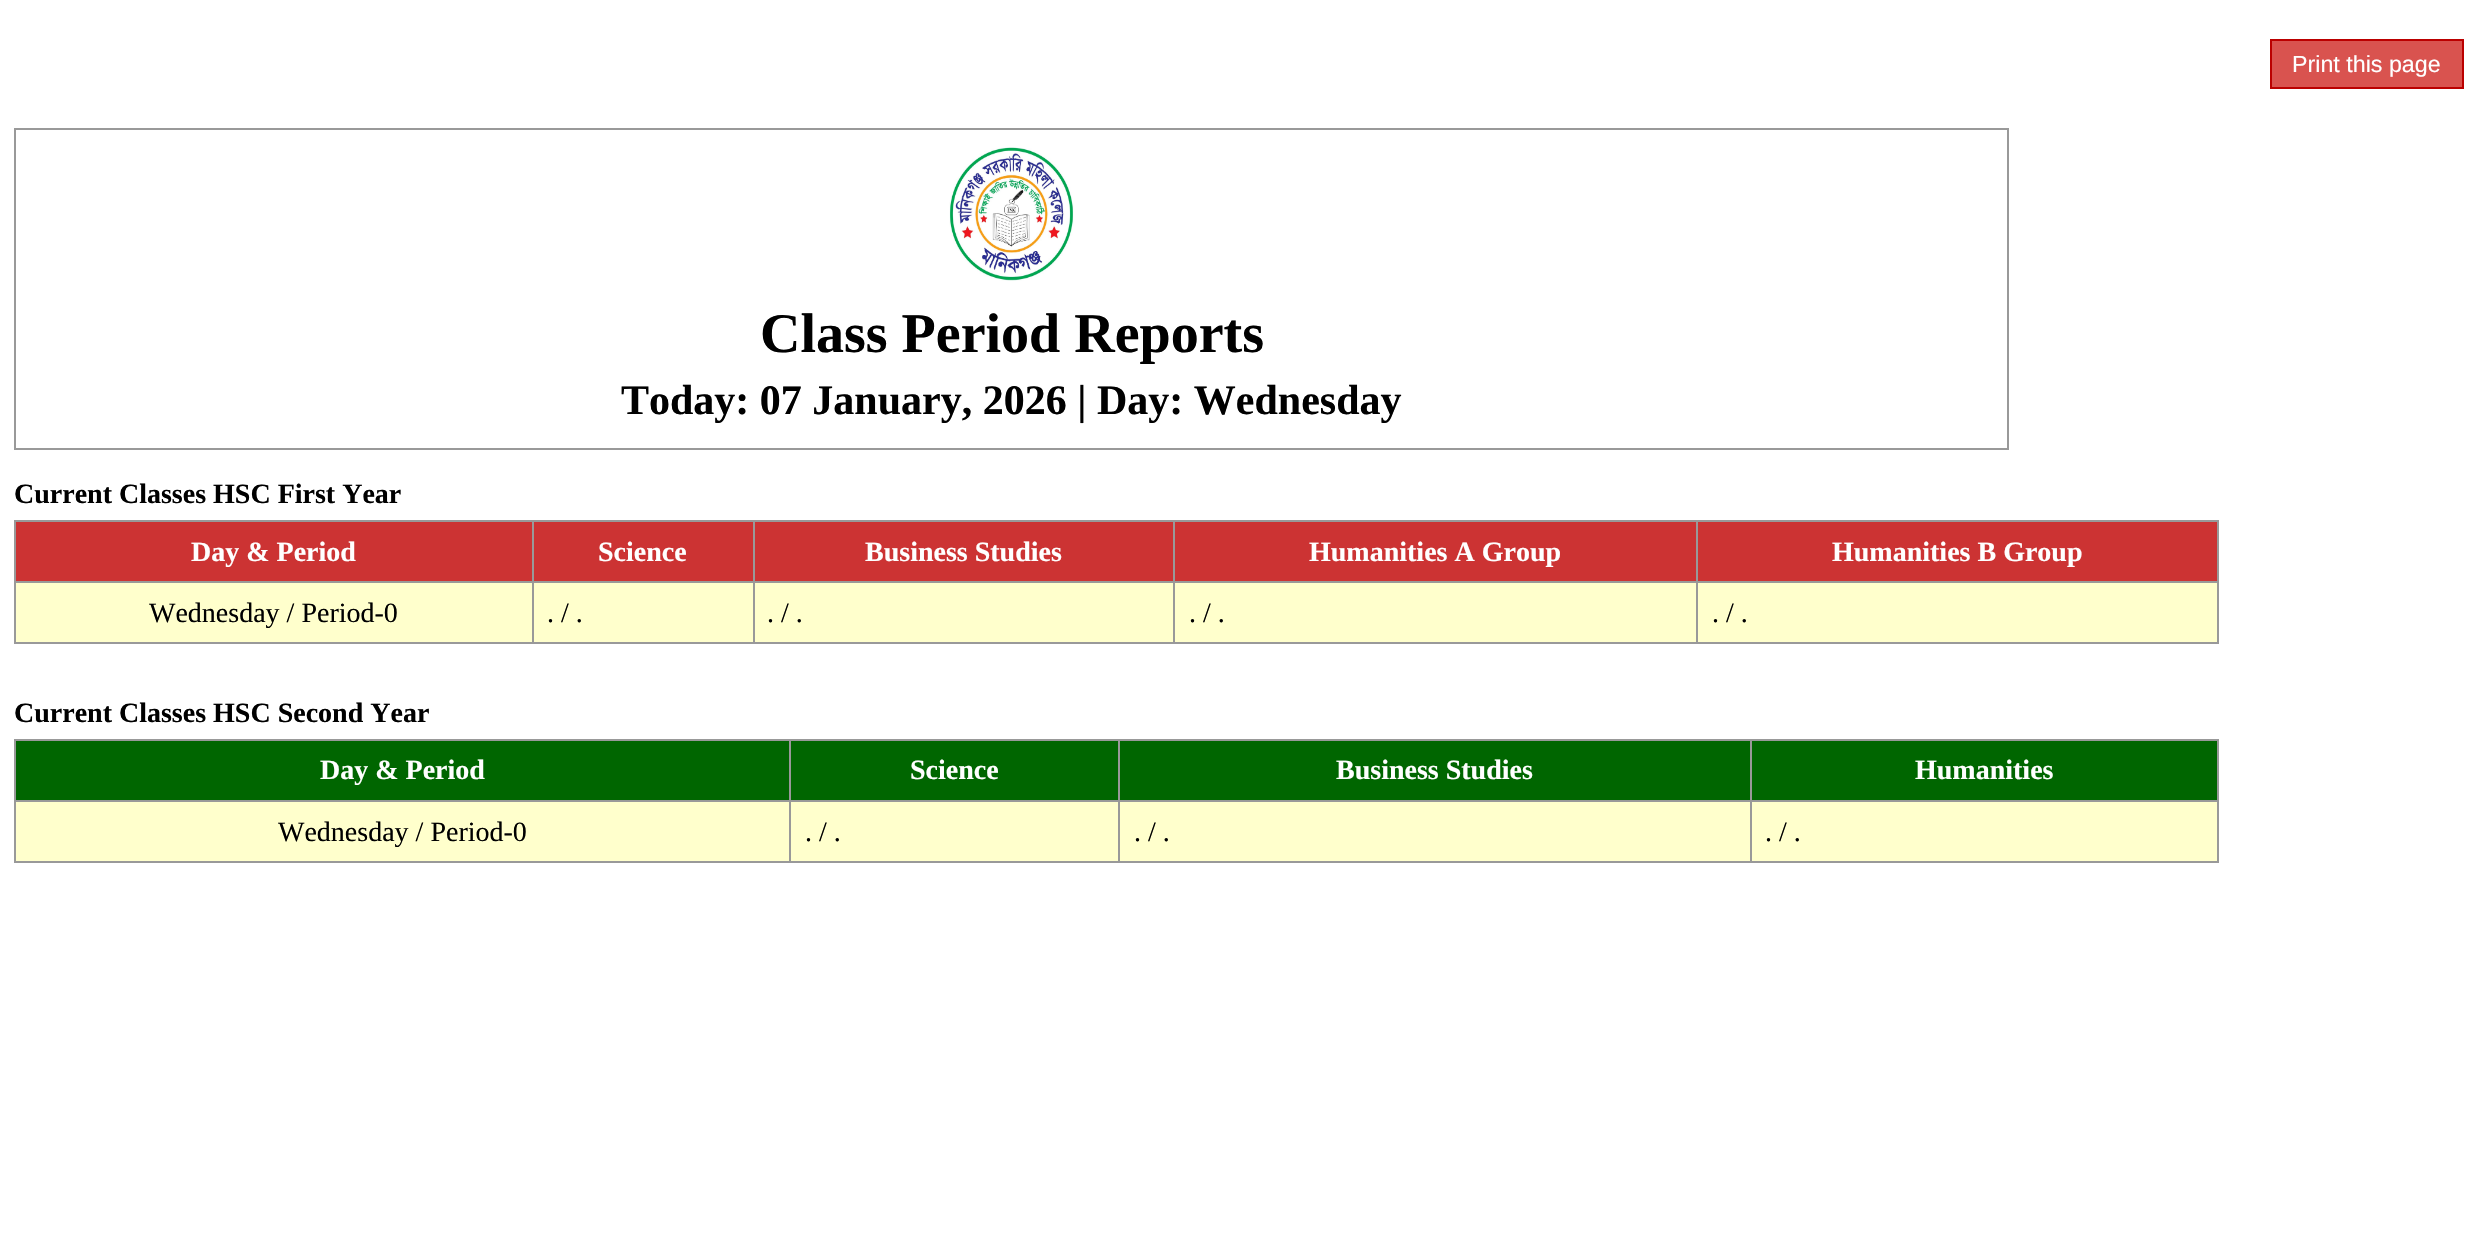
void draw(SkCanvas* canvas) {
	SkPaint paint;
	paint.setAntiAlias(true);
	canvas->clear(0xffffffff);
	paint.setColor(0xffd9534f);
	canvas->drawRect(SkRect::MakeXYWH(2271, 40, 192, 48), paint);
	paint.setStroke(true);
	paint.setStrokeWidth(2);
	paint.setColor(0xffbb0000);
	canvas->drawRect(SkRect::MakeXYWH(2271, 40, 192, 48), paint);
	SkFont f1(fontMgr->matchFamilyStyle("Liberation Sans", SkFontStyle::Normal()), 23.25);
	f1.setSubpixel(true);
	paint.setStroke(false);
	paint.setColor(0xffffffff);
	canvas->drawString("Print this page", 2292, 72, f1, paint);
	paint.setColor(0xff999999);
	canvas->drawRect(SkRect::MakeXYWH(14, 128, 1995, 2), paint);
	canvas->drawRect(SkRect::MakeXYWH(2007, 128, 2, 322), paint);
	canvas->drawRect(SkRect::MakeXYWH(14, 448, 1995, 2), paint);
	canvas->drawRect(SkRect::MakeXYWH(14, 128, 2, 322), paint);
	canvas->drawImageRect(SkImages::DeferredFromEncodedData(SkData::MakeFromFileName("img1.png")), SkRect::MakeXYWH(949, 147, 125, 134), SkSamplingOptions());
	SkFont f2(fontMgr->matchFamilyStyle("Liberation Serif", SkFontStyle::Bold()), 56);
	f2.setSubpixel(true);
	paint.setColor(0xff000000);
	canvas->drawString("Class Period Reports", 760, 352, f2, paint);
	SkFont f3(fontMgr->matchFamilyStyle("Liberation Serif", SkFontStyle::Bold()), 42);
	f3.setSubpixel(true);
	canvas->drawString("Today: 07 January, 2026 | Day: Wednesday", 621, 414, f3, paint);
	SkFont f4(fontMgr->matchFamilyStyle("Liberation Serif", SkFontStyle::Bold()), 28);
	f4.setSubpixel(true);
	canvas->drawString("Current Classes HSC First Year", 14, 503, f4, paint);
	paint.setColor(0xffcc3333);
	canvas->drawRect(SkRect::MakeXYWH(16, 522, 516, 59), paint);
	paint.setColor(0xff999999);
	canvas->drawRect(SkRect::MakeXYWH(1696, 520, 523, 2), paint);
	canvas->drawRect(SkRect::MakeXYWH(1696, 581, 523, 2), paint);
	paint.setColor(0xffffffcc);
	canvas->drawRect(SkRect::MakeXYWH(16, 583, 2201, 59), paint);
	paint.setColor(0xff999999);
	canvas->drawRect(SkRect::MakeXYWH(2217, 581, 2, 63), paint);
	canvas->drawRect(SkRect::MakeXYWH(1696, 642, 523, 2), paint);
	canvas->drawRect(SkRect::MakeXYWH(1696, 581, 2, 63), paint);
	canvas->drawRect(SkRect::MakeXYWH(1173, 581, 525, 2), paint);
	canvas->drawRect(SkRect::MakeXYWH(1696, 520, 2, 63), paint);
	canvas->drawRect(SkRect::MakeXYWH(1173, 520, 525, 2), paint);
	canvas->drawRect(SkRect::MakeXYWH(1173, 642, 525, 2), paint);
	canvas->drawRect(SkRect::MakeXYWH(1173, 581, 2, 63), paint);
	canvas->drawRect(SkRect::MakeXYWH(753, 581, 421, 2), paint);
	canvas->drawRect(SkRect::MakeXYWH(1173, 520, 2, 63), paint);
	canvas->drawRect(SkRect::MakeXYWH(753, 520, 421, 2), paint);
	canvas->drawRect(SkRect::MakeXYWH(753, 642, 421, 2), paint);
	canvas->drawRect(SkRect::MakeXYWH(753, 581, 2, 63), paint);
	canvas->drawRect(SkRect::MakeXYWH(532, 581, 222, 2), paint);
	canvas->drawRect(SkRect::MakeXYWH(753, 520, 2, 63), paint);
	canvas->drawRect(SkRect::MakeXYWH(532, 520, 222, 2), paint);
	canvas->drawRect(SkRect::MakeXYWH(532, 642, 222, 2), paint);
	canvas->drawRect(SkRect::MakeXYWH(532, 581, 2, 63), paint);
	canvas->drawRect(SkRect::MakeXYWH(14, 581, 520, 2), paint);
	canvas->drawRect(SkRect::MakeXYWH(532, 520, 2, 63), paint);
	canvas->drawRect(SkRect::MakeXYWH(14, 520, 520, 2), paint);
	canvas->drawRect(SkRect::MakeXYWH(14, 642, 520, 2), paint);
	canvas->drawRect(SkRect::MakeXYWH(14, 581, 2, 63), paint);
	canvas->drawRect(SkRect::MakeXYWH(14, 520, 2, 63), paint);
	paint.setColor(0xffffffff);
	canvas->drawString("Day & Period", 191, 561, f4, paint);
	paint.setColor(0xffcc3333);
	canvas->drawRect(SkRect::MakeXYWH(534, 522, 219, 59), paint);
	paint.setColor(0xffffffff);
	canvas->drawString("Science", 598, 561, f4, paint);
	paint.setColor(0xffcc3333);
	canvas->drawRect(SkRect::MakeXYWH(755, 522, 418, 59), paint);
	paint.setColor(0xffffffff);
	canvas->drawString("Business Studies", 865, 561, f4, paint);
	paint.setColor(0xffcc3333);
	canvas->drawRect(SkRect::MakeXYWH(1175, 522, 521, 59), paint);
	paint.setColor(0xffffffff);
	canvas->drawString("Humanities A Group", 1309, 561, f4, paint);
	paint.setColor(0xffcc3333);
	canvas->drawRect(SkRect::MakeXYWH(1698, 522, 519, 59), paint);
	paint.setColor(0xff999999);
	canvas->drawRect(SkRect::MakeXYWH(2217, 520, 2, 63), paint);
	paint.setColor(0xffffffff);
	canvas->drawString("Humanities B Group", 1832, 561, f4, paint);
	SkFont f5(fontMgr->matchFamilyStyle("Liberation Serif", SkFontStyle::Normal()), 28);
	f5.setSubpixel(true);
	paint.setColor(0xff000000);
	canvas->drawString("Wednesday / Period-0", 149, 622, f5, paint);
	canvas->drawString(". / .", 547, 622, f5, paint);
	canvas->drawString(". / .", 767, 622, f5, paint);
	canvas->drawString(". / .", 1189, 622, f5, paint);
	canvas->drawString(". / .", 1712, 622, f5, paint);
	canvas->drawString("Current Classes HSC Second Year", 14, 722, f4, paint);
	paint.setColor(0xff006600);
	canvas->drawRect(SkRect::MakeXYWH(16, 741, 773, 59), paint);
	paint.setColor(0xff999999);
	canvas->drawRect(SkRect::MakeXYWH(1750, 739, 469, 2), paint);
	canvas->drawRect(SkRect::MakeXYWH(1750, 800, 469, 2), paint);
	paint.setColor(0xffffffcc);
	canvas->drawRect(SkRect::MakeXYWH(16, 802, 2201, 59), paint);
	paint.setColor(0xff999999);
	canvas->drawRect(SkRect::MakeXYWH(2217, 800, 2, 63), paint);
	canvas->drawRect(SkRect::MakeXYWH(1750, 861, 469, 2), paint);
	canvas->drawRect(SkRect::MakeXYWH(1750, 800, 2, 63), paint);
	canvas->drawRect(SkRect::MakeXYWH(1118, 800, 634, 2), paint);
	canvas->drawRect(SkRect::MakeXYWH(1750, 739, 2, 63), paint);
	canvas->drawRect(SkRect::MakeXYWH(1118, 739, 634, 2), paint);
	canvas->drawRect(SkRect::MakeXYWH(1118, 861, 634, 2), paint);
	canvas->drawRect(SkRect::MakeXYWH(1118, 800, 2, 63), paint);
	canvas->drawRect(SkRect::MakeXYWH(789, 800, 331, 2), paint);
	canvas->drawRect(SkRect::MakeXYWH(1118, 739, 2, 63), paint);
	canvas->drawRect(SkRect::MakeXYWH(789, 739, 331, 2), paint);
	canvas->drawRect(SkRect::MakeXYWH(789, 861, 331, 2), paint);
	canvas->drawRect(SkRect::MakeXYWH(789, 800, 2, 63), paint);
	canvas->drawRect(SkRect::MakeXYWH(14, 800, 777, 2), paint);
	canvas->drawRect(SkRect::MakeXYWH(789, 739, 2, 63), paint);
	canvas->drawRect(SkRect::MakeXYWH(14, 739, 777, 2), paint);
	canvas->drawRect(SkRect::MakeXYWH(14, 861, 777, 2), paint);
	canvas->drawRect(SkRect::MakeXYWH(14, 800, 2, 63), paint);
	canvas->drawRect(SkRect::MakeXYWH(14, 739, 2, 63), paint);
	paint.setColor(0xffffffff);
	canvas->drawString("Day & Period", 320, 779, f4, paint);
	paint.setColor(0xff006600);
	canvas->drawRect(SkRect::MakeXYWH(791, 741, 327, 59), paint);
	paint.setColor(0xffffffff);
	canvas->drawString("Science", 910, 779, f4, paint);
	paint.setColor(0xff006600);
	canvas->drawRect(SkRect::MakeXYWH(1120, 741, 630, 59), paint);
	paint.setColor(0xffffffff);
	canvas->drawString("Business Studies", 1336, 779, f4, paint);
	paint.setColor(0xff006600);
	canvas->drawRect(SkRect::MakeXYWH(1752, 741, 465, 59), paint);
	paint.setColor(0xff999999);
	canvas->drawRect(SkRect::MakeXYWH(2217, 739, 2, 63), paint);
	paint.setColor(0xffffffff);
	canvas->drawString("Humanities", 1915, 779, f4, paint);
	paint.setColor(0xff000000);
	canvas->drawString("Wednesday / Period-0", 278, 841, f5, paint);
	canvas->drawString(". / .", 805, 841, f5, paint);
	canvas->drawString(". / .", 1134, 841, f5, paint);
	canvas->drawString(". / .", 1765, 841, f5, paint);
}
